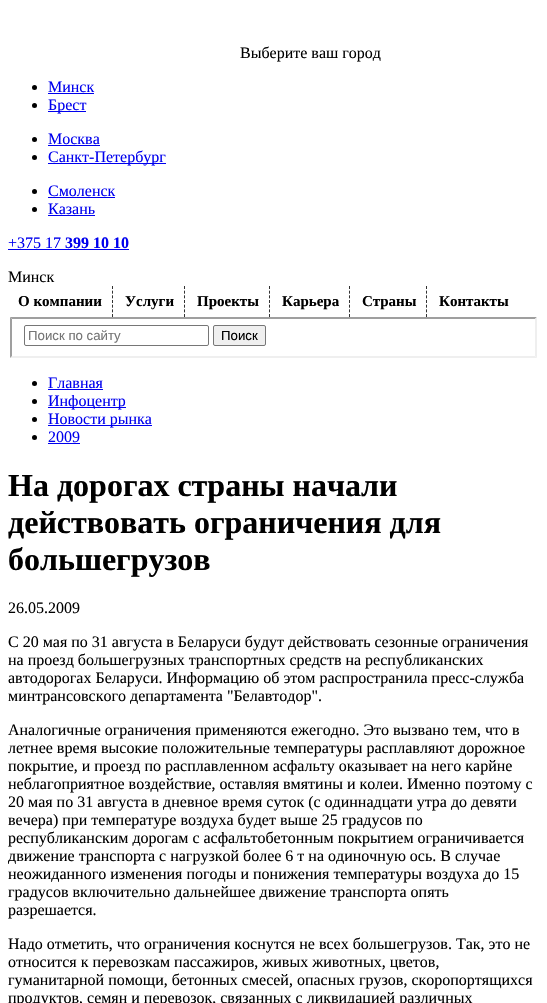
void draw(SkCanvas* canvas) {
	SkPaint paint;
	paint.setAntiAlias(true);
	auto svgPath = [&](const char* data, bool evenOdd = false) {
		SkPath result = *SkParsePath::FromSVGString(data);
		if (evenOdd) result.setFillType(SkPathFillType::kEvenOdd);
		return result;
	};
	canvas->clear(0xffffffff);
	SkFont f1(fontMgr->matchFamilyStyle("Liberation Serif", SkFontStyle::Normal()), 16);
	f1.setSubpixel(true);
	paint.setColor(0xff000000);
	canvas->drawString("Выберите ваш город", 240, 58, f1, paint);
	canvas->drawCircle(34.5, 87.5, 2.5, paint);
	paint.setColor(0xff0000ee);
	canvas->drawString("Минск", 48, 92, f1, paint);
	canvas->drawRect(SkRect::MakeXYWH(48, 93, 46, 1), paint);
	paint.setColor(0xff000000);
	canvas->drawCircle(34.5, 105.5, 2.5, paint);
	paint.setColor(0xff0000ee);
	canvas->drawRect(SkRect::MakeXYWH(48, 111, 38, 1), paint);
	canvas->drawString("Брест", 48, 110, f1, paint);
	paint.setColor(0xff000000);
	canvas->drawCircle(34.5, 139.5, 2.5, paint);
	paint.setColor(0xff0000ee);
	canvas->drawString("Москва", 48, 144, f1, paint);
	canvas->drawRect(SkRect::MakeXYWH(48, 145, 52, 1), paint);
	paint.setColor(0xff000000);
	canvas->drawCircle(34.5, 157.5, 2.5, paint);
	paint.setColor(0xff0000ee);
	canvas->drawRect(SkRect::MakeXYWH(48, 163, 118, 1), paint);
	canvas->drawString("Санкт-Петербург", 48, 162, f1, paint);
	paint.setColor(0xff000000);
	canvas->drawCircle(34.5, 191.5, 2.5, paint);
	paint.setColor(0xff0000ee);
	canvas->drawString("Смоленск", 48, 196, f1, paint);
	canvas->drawRect(SkRect::MakeXYWH(48, 197, 67, 1), paint);
	paint.setColor(0xff000000);
	canvas->drawCircle(34.5, 209.5, 2.5, paint);
	paint.setColor(0xff0000ee);
	canvas->drawString("Казань", 48, 214, f1, paint);
	canvas->drawRect(SkRect::MakeXYWH(48, 215, 47, 1), paint);
	canvas->drawString("+375 17", 8, 248, f1, paint);
	canvas->drawRect(SkRect::MakeXYWH(8, 249, 121, 1), paint);
	SkFont f2(fontMgr->matchFamilyStyle("Liberation Serif", SkFontStyle::Bold()), 16);
	f2.setSubpixel(true);
	canvas->drawString("399 10 10", 65, 248, f2, paint);
	paint.setColor(0xff000000);
	canvas->drawString("Минск", 8, 282, f1, paint);
	SkFont f3(fontMgr->matchFamilyStyle("Liberation Serif", SkFontStyle::Bold()), 15);
	f3.setSubpixel(true);
	canvas->drawString("O компании", 18, 306, f3, paint);
	paint.setStroke(true);
	paint.setStrokeWidth(1);
	paint.setColor(0xff323232);
	paint.setPathEffect(SkDashPathEffect::Make({{3, 1.67f}}, 0));
	canvas->drawPath(svgPath("M112.5 286V317"), paint);
	paint.setPathEffect(nullptr);
	paint.setStroke(false);
	paint.setColor(0xff000000);
	canvas->drawString("Услуги", 125, 306, f3, paint);
	paint.setStroke(true);
	paint.setColor(0xff323232);
	paint.setPathEffect(SkDashPathEffect::Make({{3, 1.67f}}, 0));
	canvas->drawPath(svgPath("M184.5 286V317"), paint);
	paint.setPathEffect(nullptr);
	paint.setStroke(false);
	paint.setColor(0xff000000);
	canvas->drawString("Проекты", 197, 306, f3, paint);
	paint.setStroke(true);
	paint.setColor(0xff323232);
	paint.setPathEffect(SkDashPathEffect::Make({{3, 1.67f}}, 0));
	canvas->drawPath(svgPath("M269.5 286V317"), paint);
	paint.setPathEffect(nullptr);
	paint.setStroke(false);
	paint.setColor(0xff000000);
	canvas->drawString("Карьера", 282, 306, f3, paint);
	paint.setStroke(true);
	paint.setColor(0xff323232);
	paint.setPathEffect(SkDashPathEffect::Make({{3, 1.67f}}, 0));
	canvas->drawPath(svgPath("M349.5 286V317"), paint);
	paint.setPathEffect(nullptr);
	paint.setStroke(false);
	paint.setColor(0xff000000);
	canvas->drawString("Страны", 362, 306, f3, paint);
	paint.setStroke(true);
	paint.setColor(0xff323232);
	paint.setPathEffect(SkDashPathEffect::Make({{3, 1.67f}}, 0));
	canvas->drawPath(svgPath("M426.5 286V317"), paint);
	paint.setPathEffect(nullptr);
	paint.setStroke(false);
	paint.setColor(0xff000000);
	canvas->drawString("Контакты", 439, 306, f3, paint);
	paint.setColor(0xff9f9f9f);
	canvas->drawPath(svgPath("M10 317H537L535 319H12Z"), paint);
	paint.setColor(0xffefefef);
	canvas->drawPath(svgPath("M537 317V358L535 356V319Z"), paint);
	canvas->drawPath(svgPath("M537 358H10L12 356H535Z"), paint);
	paint.setColor(0xff9f9f9f);
	canvas->drawPath(svgPath("M10 358V317L12 319V356Z"), paint);
	paint.setStroke(true);
	paint.setColor(0xff767676);
	canvas->drawRoundRect(SkRect::MakeXYWH(24.5, 325.5, 184, 20), 1.5, 1.5, paint);
	SkFont f4(fontMgr->matchFamilyStyle("Liberation Sans", SkFontStyle::Normal()), 13.25);
	f4.setSubpixel(true);
	paint.setStroke(false);
	paint.setColor(0xff757575);
	canvas->drawString("Поиск по сайту", 28, 340, f4, paint);
	paint.setColor(0xffefefef);
	canvas->drawRoundRect(SkRect::MakeXYWH(213.5, 325.5, 52, 20), 1.5, 1.5, paint);
	paint.setStroke(true);
	paint.setColor(0xff767676);
	canvas->drawRoundRect(SkRect::MakeXYWH(213.5, 325.5, 52, 20), 1.5, 1.5, paint);
	paint.setStroke(false);
	paint.setColor(0xff000000);
	canvas->drawString("Поиск", 221, 340, f4, paint);
	canvas->drawCircle(34.5, 383.5, 2.5, paint);
	paint.setColor(0xff0000ee);
	canvas->drawString("Главная", 48, 388, f1, paint);
	canvas->drawRect(SkRect::MakeXYWH(48, 389, 55, 1), paint);
	paint.setColor(0xff000000);
	canvas->drawCircle(34.5, 401.5, 2.5, paint);
	paint.setColor(0xff0000ee);
	canvas->drawRect(SkRect::MakeXYWH(48, 407, 78, 1), paint);
	canvas->drawString("Инфоцентр", 48, 406, f1, paint);
	paint.setColor(0xff000000);
	canvas->drawCircle(34.5, 419.5, 2.5, paint);
	paint.setColor(0xff0000ee);
	canvas->drawRect(SkRect::MakeXYWH(48, 425, 104, 1), paint);
	canvas->drawString("Новости рынка", 48, 424, f1, paint);
	paint.setColor(0xff000000);
	canvas->drawCircle(34.5, 437.5, 2.5, paint);
	paint.setColor(0xff0000ee);
	canvas->drawString("2009", 48, 442, f1, paint);
	canvas->drawRect(SkRect::MakeXYWH(48, 443, 32, 1), paint);
	SkFont f5(fontMgr->matchFamilyStyle("Liberation Serif", SkFontStyle::Bold()), 32);
	f5.setSubpixel(true);
	paint.setColor(0xff000000);
	canvas->drawString("На дорогах страны начали", 8, 496, f5, paint);
	canvas->drawString("действовать ограничения для", 8, 533, f5, paint);
	canvas->drawString("большегрузов", 8, 570, f5, paint);
	canvas->drawString("26.05.2009", 8, 613, f1, paint);
	canvas->drawString("C 20 мая по 31 августа в Беларуси будут действовать сезонные ограничения", 8, 647, f1, paint);
	canvas->drawString("на проезд большегрузных транспортных средств на республиканских", 8, 665, f1, paint);
	canvas->drawString("автодорогах Беларуси. Информацию об этом распространила пресс-служба", 8, 683, f1, paint);
	canvas->drawString("минтрансовского департамента \"Белавтодор\".", 8, 701, f1, paint);
	canvas->drawString("Аналогичные ограничения применяются ежегодно. Это вызвано тем, что в", 8, 735, f1, paint);
	canvas->drawString("летнее время высокие положительные температуры расплавляют дорожное", 8, 753, f1, paint);
	canvas->drawString("покрытие, и проезд по расплавленном асфальту оказывает на него карйне", 8, 771, f1, paint);
	canvas->drawString("неблагоприятное воздействие, оставляя вмятины и колеи. Именно поэтому с", 8, 789, f1, paint);
	canvas->drawString("20 мая по 31 августа в дневное время суток (с одиннадцати утра до девяти", 8, 807, f1, paint);
	canvas->drawString("вечера) при температуре воздуха будет выше 25 градусов по", 8, 825, f1, paint);
	canvas->drawString("республиканским дорогам с асфальтобетонным покрытием ограничивается", 8, 843, f1, paint);
	canvas->drawString("движение транспорта с нагрузкой более 6 т на одиночную ось. В случае", 8, 861, f1, paint);
	canvas->drawString("неожиданного изменения погоды и понижения температуры воздуха до 15", 8, 879, f1, paint);
	canvas->drawString("градусов включительно дальнейшее движение транспорта опять", 8, 897, f1, paint);
	canvas->drawString("разрешается.", 8, 915, f1, paint);
	canvas->drawString("Надо отметить, что ограничения коснутся не всех большегрузов. Так, это не", 8, 949, f1, paint);
	canvas->drawString("относится к перевозкам пассажиров, живых животных, цветов,", 8, 967, f1, paint);
	canvas->drawString("гуманитарной помощи, бетонных смесей, опасных грузов, скоропортящихся", 8, 985, f1, paint);
	canvas->drawString("продуктов, семян и перевозок, связанных с ликвидацией различных", 8, 1003, f1, paint);
}
